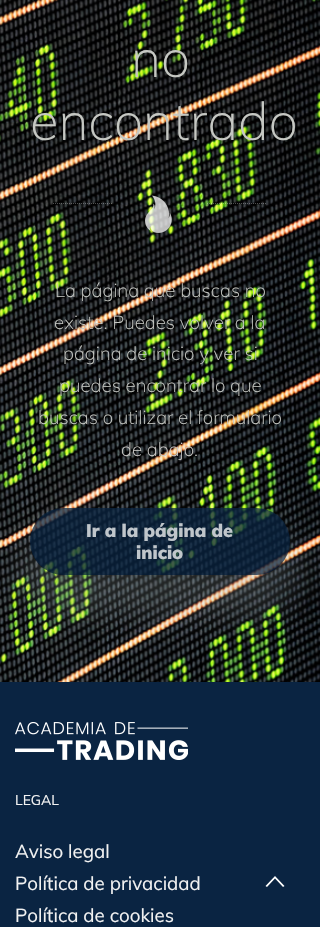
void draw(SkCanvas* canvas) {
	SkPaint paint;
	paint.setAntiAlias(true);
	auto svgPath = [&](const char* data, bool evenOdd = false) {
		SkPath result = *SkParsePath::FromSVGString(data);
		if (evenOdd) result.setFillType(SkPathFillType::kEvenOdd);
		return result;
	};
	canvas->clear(0xffffffff);
	canvas->drawImageRect(SkImages::DeferredFromEncodedData(SkData::MakeFromFileName("img1.png")), SkRect::MakeXYWH(0, 0, 320, 682), SkSamplingOptions());
	SkFont f1(fontMgr->matchFamilyStyle("Muli", SkFontStyle(200, SkFontStyle::kNormal_Width, SkFontStyle::kUpright_Slant)), 52.5);
	f1.setSubpixel(true);
	paint.setColor(0xffc6c8c3);
	canvas->drawString("no", 131, 77, f1, paint);
	canvas->drawString("encontrado", 30, 140, f1, paint);
	paint.setStroke(true);
	paint.setStrokeWidth(1);
	paint.setColor(0x4affffff);
	paint.setPathEffect(SkDashPathEffect::Make({{1, 1}}, 0));
	canvas->drawPath(svgPath("M53 203.5H113"), paint);
	paint.setPathEffect(nullptr);
	canvas->drawImageRect(SkImages::DeferredFromEncodedData(SkData::MakeFromFileName("img2.png")), SkRect::MakeXYWH(145, 195, 27, 38), SkSamplingOptions());
	paint.setPathEffect(SkDashPathEffect::Make({{1, 1}}, 0));
	canvas->drawPath(svgPath("M207 203.5H267"), paint);
	paint.setPathEffect(nullptr);
	SkFont f2(fontMgr->matchFamilyStyle("Muli", SkFontStyle(200, SkFontStyle::kNormal_Width, SkFontStyle::kUpright_Slant)), 18.75);
	f2.setSubpixel(true);
	paint.setStroke(false);
	paint.setColor(0xffc6c8c3);
	canvas->drawString("La página que buscas no", 55, 297, f2, paint);
	canvas->drawString("existe. Puedes volver a la", 54, 329, f2, paint);
	canvas->drawString("página de inicio y ver si", 63, 360, f2, paint);
	canvas->drawString("puedes encontrar lo que", 59, 392, f2, paint);
	canvas->drawString("buscas o utilizar el formulario", 38, 424, f2, paint);
	paint.setColor(0xffcccac7);
	canvas->drawString("de abajo.", 121, 456, f2, paint);
	canvas->save();
	canvas->clipPath(svgPath("M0 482H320V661H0ZM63.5 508H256.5C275 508 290 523 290 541.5C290 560 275 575 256.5 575H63.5C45 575 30 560 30 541.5C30 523 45 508 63.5 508Z", true), true);
	paint.setColor(0x3898a3a6);
	paint.setMaskFilter(SkMaskFilter::MakeBlur(kNormal_SkBlurStyle, 15));
	canvas->drawRoundRect(SkRect::MakeXYWH(20, 528, 280, 87), 43.5, 43.5, paint);
	paint.setMaskFilter(nullptr);
	canvas->restore();
	paint.setColor(0xbd0a2442);
	canvas->drawRoundRect(SkRect::MakeXYWH(30, 508, 260, 67), 33.5, 33.5, paint);
	SkFont f3(fontMgr->matchFamilyStyle("Muli", SkFontStyle(900, SkFontStyle::kNormal_Width, SkFontStyle::kUpright_Slant)), 18);
	f3.setSubpixel(true);
	paint.setColor(0xffc0c6cb);
	canvas->drawString("Ir a la página de", 86, 537, f3, paint);
	canvas->drawString("inicio", 136, 559, f3, paint);
	paint.setColor(0xff0a2442);
	canvas->drawRect(SkRect::MakeXYWH(0, 682, 320, 245), paint);
	canvas->drawImageRect(SkImages::DeferredFromEncodedData(SkData::MakeFromFileName("img3.png")), SkRect::MakeXYWH(15, 722, 173, 38), SkSamplingOptions());
	SkFont f4(fontMgr->matchFamilyStyle("Muli", SkFontStyle::Normal()), 14);
	f4.setSubpixel(true);
	paint.setColor(0xfff2f2f2);
	canvas->drawString("LEGAL", 15, 805, f4, paint);
	SkFont f5(fontMgr->matchFamilyStyle("Muli", SkFontStyle::Normal()), 18.75);
	f5.setSubpixel(true);
	canvas->drawString("Aviso legal", 15, 858, f5, paint);
	canvas->drawString("Política de privacidad", 15, 890, f5, paint);
	canvas->drawString("Política de cookies", 15, 922, f5, paint);
	paint.setColor(0xffffffff);
	canvas->drawPath(svgPath("M283 887L284.5 886L275 876L265.5 886L267 887L275 878.5Z"), paint);
}
